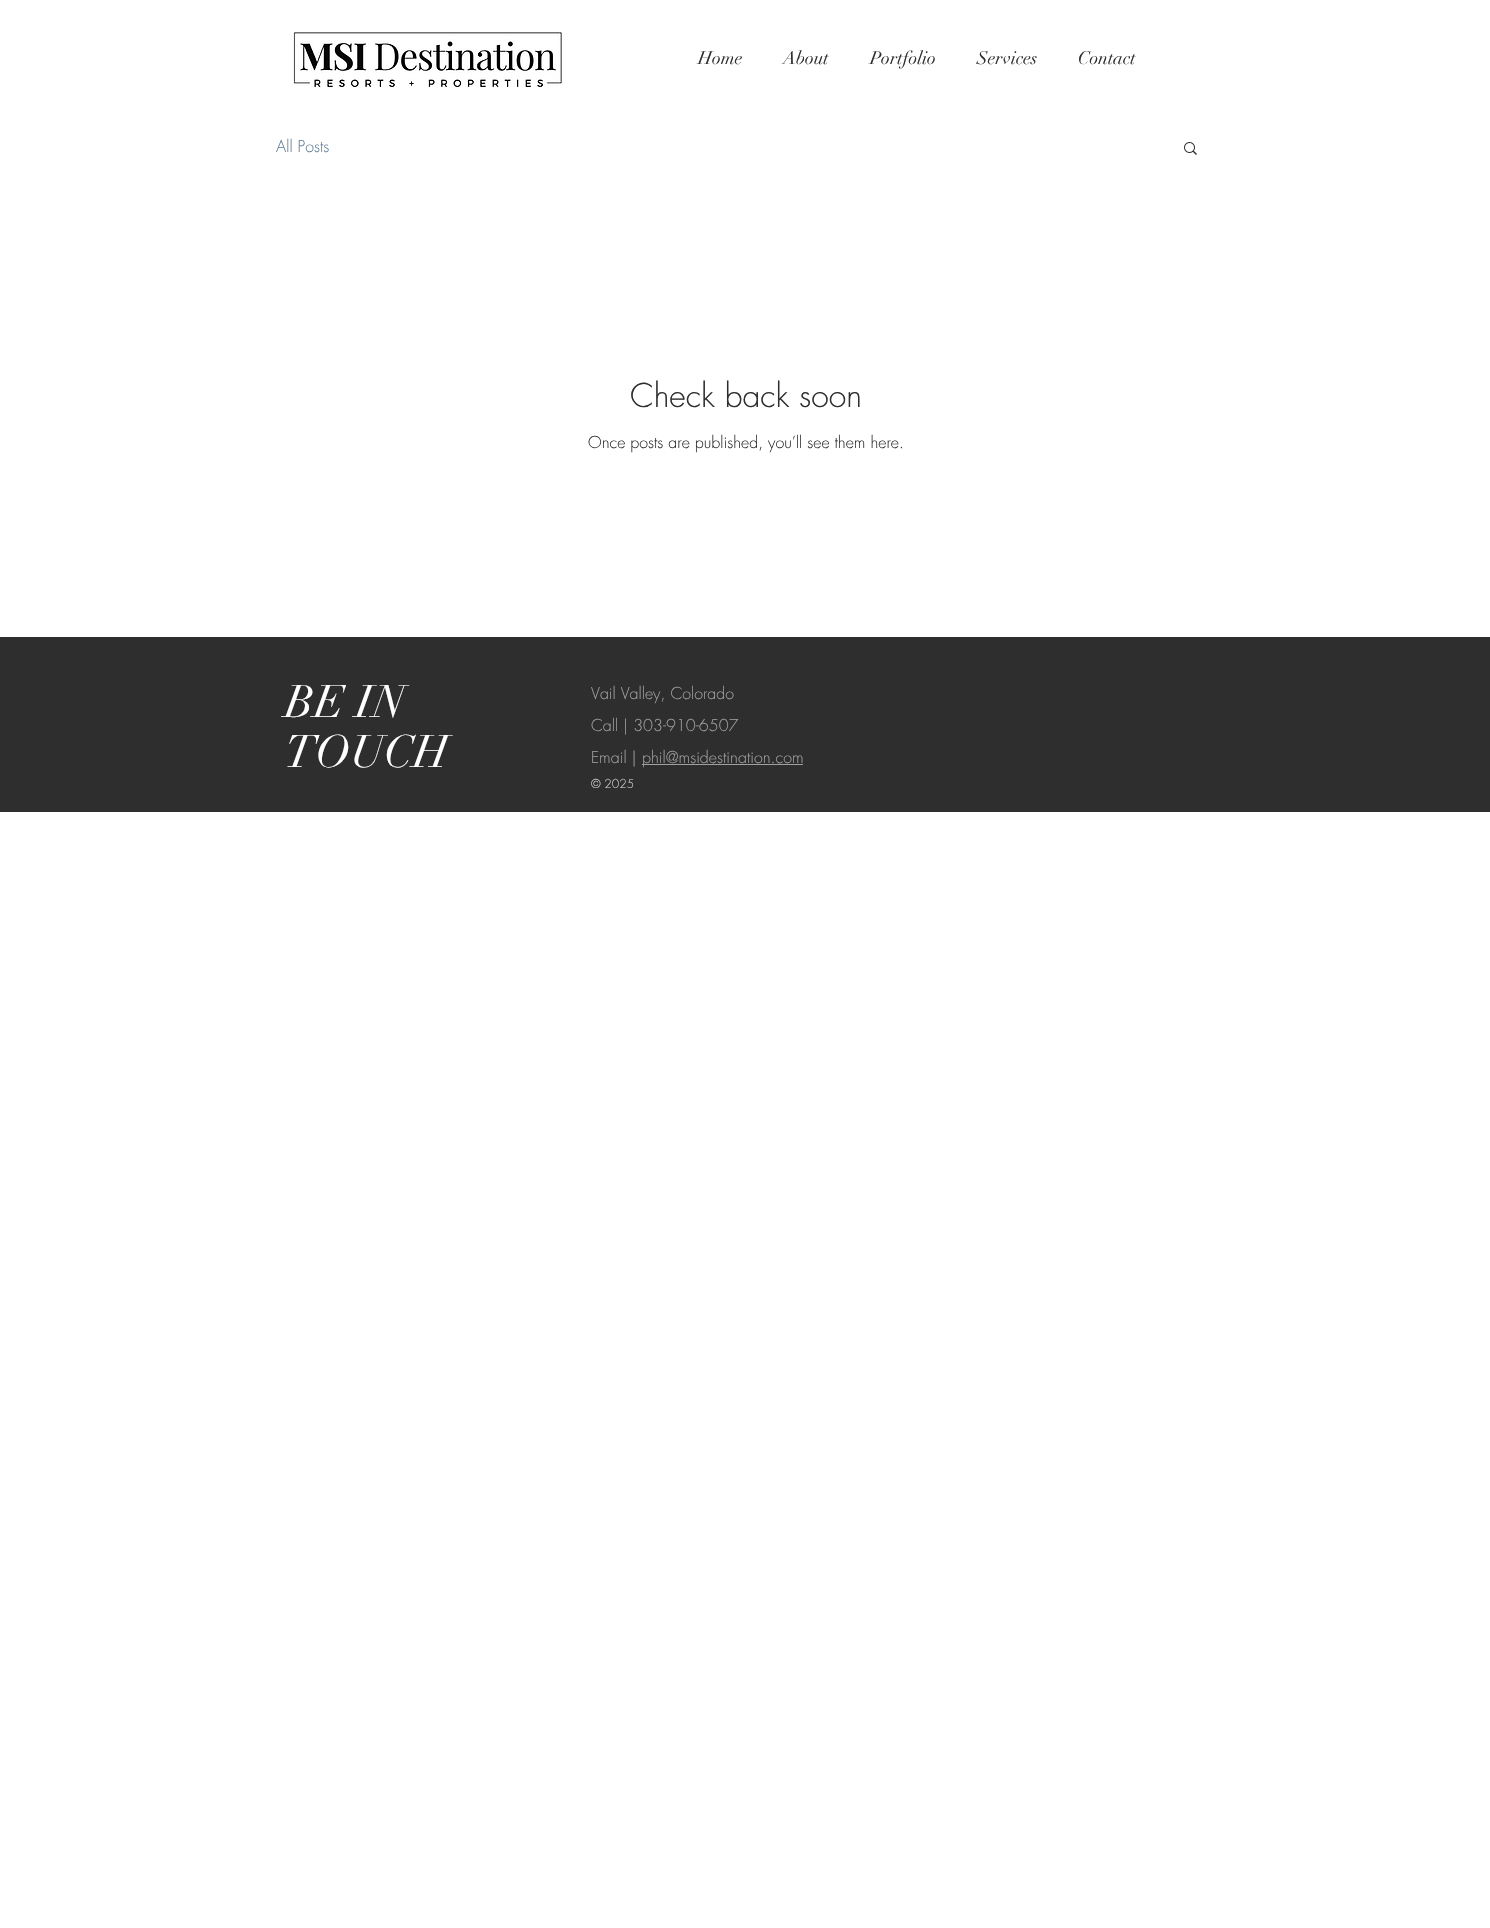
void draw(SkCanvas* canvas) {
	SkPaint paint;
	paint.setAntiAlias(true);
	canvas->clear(0xffffffff);
	canvas->drawImageRect(SkImages::DeferredFromEncodedData(SkData::MakeFromFileName("img1.png")), SkRect::MakeXYWH(293, 32, 269, 56), SkSamplingOptions());
	SkFont f1(fontMgr->matchFamilyStyle("didot", SkFontStyle::Normal()), 18);
	f1.setSubpixel(true);
	paint.setColor(0xff2f2e2e);
	canvas->drawString("Home", 698, 64, f1, paint);
	canvas->drawString("About", 783, 64, f1, paint);
	canvas->drawString("Portfolio", 870, 64, f1, paint);
	canvas->drawString("Services", 977, 64, f1, paint);
	canvas->drawString("Contact", 1078, 64, f1, paint);
	SkFont f2(fontMgr->matchFamilyStyle("futura", SkFontStyle(300, SkFontStyle::kNormal_Width, SkFontStyle::kUpright_Slant)), 16);
	f2.setSubpixel(true);
	paint.setColor(0xff607d96);
	canvas->drawString("All Posts", 276, 152, f2, paint);
	canvas->drawImageRect(SkImages::DeferredFromEncodedData(SkData::MakeFromFileName("img2.png")), SkRect::MakeXYWH(1184, 142, 13, 13), SkSamplingOptions());
	SkFont f3(fontMgr->matchFamilyStyle("futura", SkFontStyle(300, SkFontStyle::kNormal_Width, SkFontStyle::kUpright_Slant)), 32);
	f3.setSubpixel(true);
	paint.setColor(0xff2f2e2e);
	canvas->drawString("Check back soon", 630, 407, f3, paint);
	canvas->drawString("Once posts are published, you’ll see them here.", 588, 448, f2, paint);
	canvas->drawRect(SkRect::MakeXYWH(0, 637, 1490, 175), paint);
	SkFont f4(fontMgr->matchFamilyStyle("didot", SkFontStyle::Normal()), 45);
	f4.setSubpixel(true);
	paint.setColor(0xffffffff);
	canvas->drawString("BE IN", 285, 717, f4, paint);
	canvas->drawString("TOUCH", 285, 767, f4, paint);
	paint.setColor(0xffa0a09f);
	canvas->drawString("Vail Valley, Colorado", 591, 699, f2, paint);
	canvas->drawString("Call | 303-910-6507", 591, 731, f2, paint);
	canvas->drawString("Email |", 591, 763, f2, paint);
	canvas->drawRect(SkRect::MakeXYWH(642, 764, 161, 1), paint);
	canvas->drawString("phil@msidestination.com", 642, 763, f2, paint);
	SkFont f5(fontMgr->matchFamilyStyle("futura", SkFontStyle(300, SkFontStyle::kNormal_Width, SkFontStyle::kUpright_Slant)), 12);
	f5.setSubpixel(true);
	paint.setColor(0xffcccccc);
	canvas->drawString("© 2025", 591, 788, f5, paint);
}
